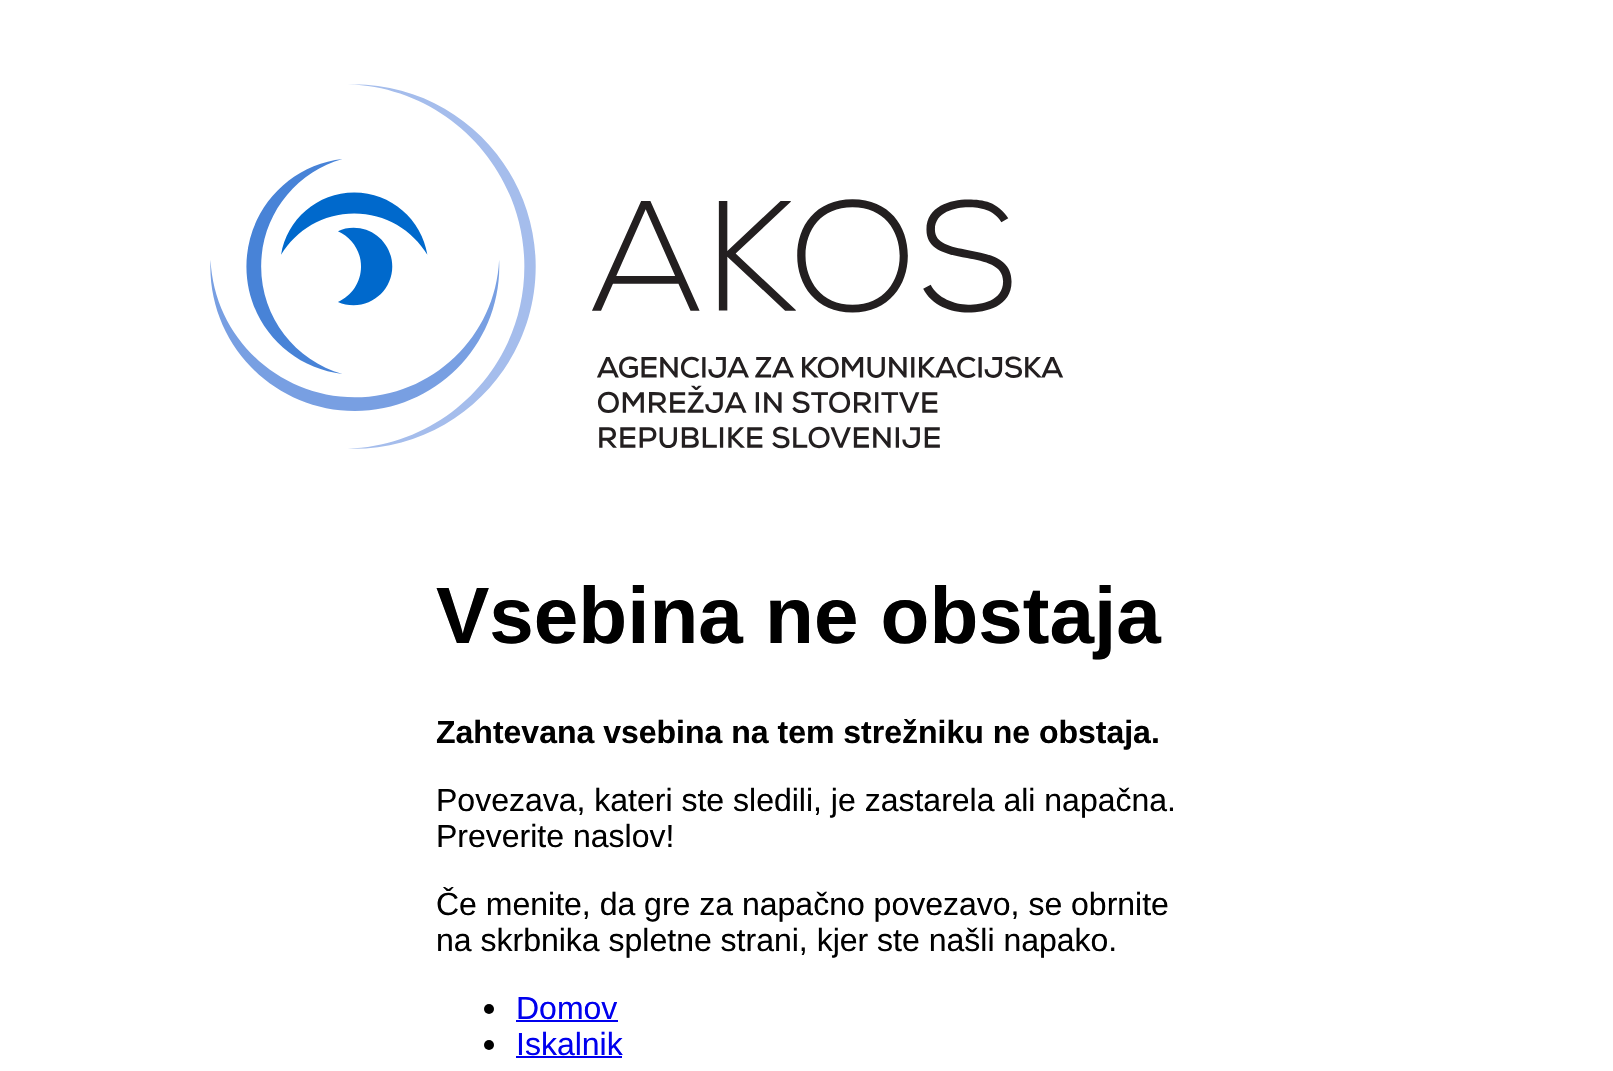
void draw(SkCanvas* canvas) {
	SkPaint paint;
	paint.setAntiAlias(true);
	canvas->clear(0xffffffff);
	canvas->drawImageRect(SkImages::DeferredFromEncodedData(SkData::MakeFromFileName("img1.png")), SkRect::MakeXYWH(210, 84, 854, 365), SkSamplingOptions());
	SkFont f1(fontMgr->matchFamilyStyle("Liberation Sans", SkFontStyle::Bold()), 80);
	f1.setSubpixel(true);
	paint.setColor(0xff000000);
	canvas->drawString("Vsebina ne obstaja", 436, 643, f1, paint);
	SkFont f2(fontMgr->matchFamilyStyle("Liberation Sans", SkFontStyle::Bold()), 32);
	f2.setSubpixel(true);
	canvas->drawString("Zahtevana vsebina na tem strežniku ne obstaja.", 436, 743, f2, paint);
	SkFont f3(fontMgr->matchFamilyStyle("Liberation Sans", SkFontStyle::Normal()), 32);
	f3.setSubpixel(true);
	canvas->drawString("Povezava, kateri ste sledili, je zastarela ali napačna.", 436, 811, f3, paint);
	canvas->drawString("Preverite naslov!", 436, 847, f3, paint);
	canvas->drawString("Če menite, da gre za napačno povezavo, se obrnite", 436, 915, f3, paint);
	canvas->drawString("na skrbnika spletne strani, kjer ste našli napako.", 436, 951, f3, paint);
	canvas->drawCircle(489, 1009, 5, paint);
	paint.setColor(0xff0000ee);
	canvas->drawString("Domov", 516, 1019, f3, paint);
	canvas->drawRect(SkRect::MakeXYWH(516, 1020, 102, 2), paint);
	paint.setColor(0xff000000);
	canvas->drawCircle(489, 1045, 5, paint);
	paint.setColor(0xff0000ee);
	canvas->drawString("Iskalnik", 516, 1055, f3, paint);
	canvas->drawRect(SkRect::MakeXYWH(516, 1056, 106, 2), paint);
}
